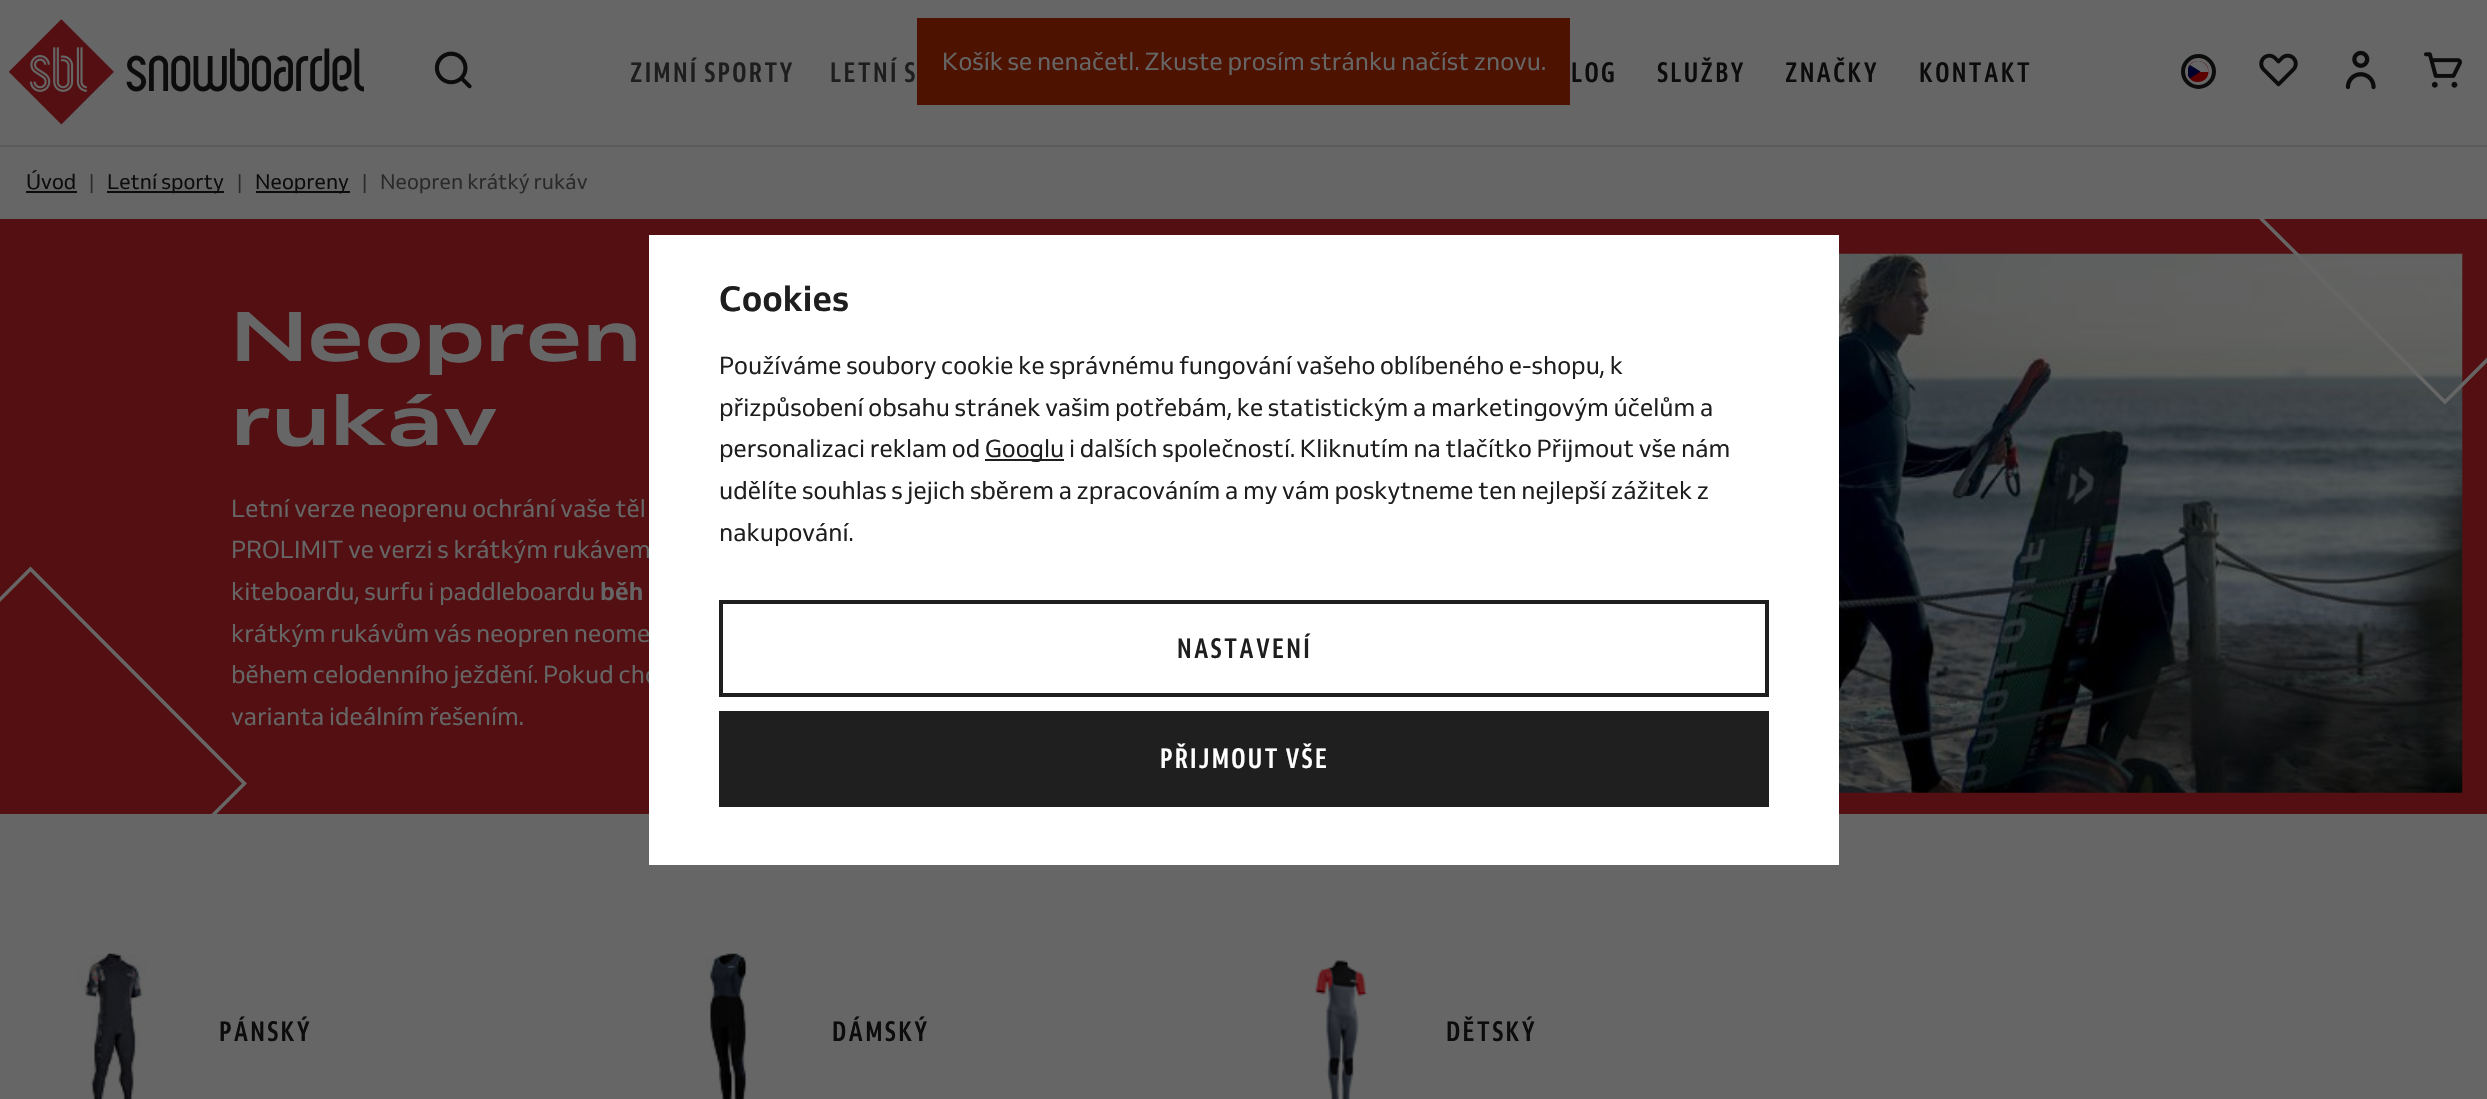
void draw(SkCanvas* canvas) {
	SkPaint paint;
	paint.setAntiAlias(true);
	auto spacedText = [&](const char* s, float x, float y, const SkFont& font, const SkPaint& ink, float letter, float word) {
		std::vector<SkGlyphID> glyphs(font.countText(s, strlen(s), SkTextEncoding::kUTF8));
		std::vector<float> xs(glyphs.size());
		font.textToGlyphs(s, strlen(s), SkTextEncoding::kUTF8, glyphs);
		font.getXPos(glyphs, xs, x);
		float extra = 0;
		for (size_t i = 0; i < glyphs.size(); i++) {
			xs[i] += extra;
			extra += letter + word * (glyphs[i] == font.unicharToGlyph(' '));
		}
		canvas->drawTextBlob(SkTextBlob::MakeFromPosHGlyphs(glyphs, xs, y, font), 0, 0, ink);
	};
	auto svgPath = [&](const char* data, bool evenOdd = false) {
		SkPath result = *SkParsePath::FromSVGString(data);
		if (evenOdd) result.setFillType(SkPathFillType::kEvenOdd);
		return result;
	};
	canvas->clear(0xff666666);
	paint.setColor(0xff4d1200);
	canvas->drawRect(SkRect::MakeXYWH(917, 18, 653, 87), paint);
	SkFont f1(fontMgr->matchFamilyStyle("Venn", SkFontStyle::Normal()), 24.5);
	f1.setSubpixel(true);
	paint.setColor(0xff666666);
	canvas->drawString("Košík se nenačetl. Zkuste prosím stránku načíst znovu.", 942, 70, f1, paint);
	paint.setColor(0xff5b5b5b);
	canvas->drawRect(SkRect::MakeXYWH(0, 145, 2487, 2), paint);
	canvas->drawImageRect(SkImages::DeferredFromEncodedData(SkData::MakeFromFileName("img1.png")), SkRect::MakeXYWH(9, 19, 355, 106), SkSamplingOptions());
	canvas->drawImageRect(SkImages::DeferredFromEncodedData(SkData::MakeFromFileName("img2.png")), SkRect::MakeXYWH(434, 51, 38, 38), SkSamplingOptions());
	SkFont f2(fontMgr->matchFamilyStyle("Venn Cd", SkFontStyle::Bold()), 28);
	f2.setSubpixel(true);
	paint.setColor(0xff1e1e1e);
	spacedText("ZIMNÍ SPORTY", 630, 82, f2, paint, 2.25, 0);
	spacedText("LETNÍ S", 830, 82, f2, paint, 2.25, 0);
	paint.setColor(0xff0c0c0c);
	spacedText("LOG", 1571, 82, f2, paint, 2.25, 0);
	spacedText("SLUŽBY", 1657, 82, f2, paint, 2.25, 0);
	spacedText("ZNAČKY", 1785, 82, f2, paint, 2.25, 0);
	spacedText("KONTAKT", 1919, 82, f2, paint, 2.25, 0);
	paint.setStroke(true);
	paint.setStrokeWidth(4);
	canvas->drawCircle(2198.5, 71.5, 15.5, paint);
	canvas->save();
	canvas->clipRect(SkRect::MakeXYWH(2188, 61, 21, 21));
	paint.setStroke(false);
	paint.setColor(0xff5d0000);
	canvas->drawPath(svgPath("M2198 61C2212 61 2212 82 2198 82C2184 82 2184 61 2198 61Z"), paint);
	paint.setColor(0xff666666);
	canvas->drawPath(svgPath("M2198 61C2192 61 2187.5 66 2187.5 72H2208.5C2208.5 66 2204 61 2198 61Z"), paint);
	paint.setColor(0xff00002c);
	canvas->drawPath(svgPath("M2190 65C2186.5 68.5 2186.5 74.5 2190 78.5L2200.5 71.5Z"), paint);
	canvas->restore();
	canvas->drawImageRect(SkImages::DeferredFromEncodedData(SkData::MakeFromFileName("img3.png")), SkRect::MakeXYWH(2259, 53, 39, 34), SkSamplingOptions());
	canvas->drawImageRect(SkImages::DeferredFromEncodedData(SkData::MakeFromFileName("img4.png")), SkRect::MakeXYWH(2345, 50, 31, 40), SkSamplingOptions());
	canvas->drawImageRect(SkImages::DeferredFromEncodedData(SkData::MakeFromFileName("img5.png")), SkRect::MakeXYWH(2424, 52, 38, 36), SkSamplingOptions());
	SkFont f3(fontMgr->matchFamilyStyle("Venn", SkFontStyle::Normal()), 21);
	f3.setSubpixel(true);
	paint.setColor(0xff0c0c0c);
	canvas->drawString("Úvod", 26, 189, f3, paint);
	canvas->drawRect(SkRect::MakeXYWH(26, 191, 51, 2), paint);
	paint.setColor(0xff2a2a2a);
	canvas->drawString("|", 89, 190, f3, paint);
	paint.setColor(0xff0c0c0c);
	canvas->drawRect(SkRect::MakeXYWH(107, 191, 117, 2), paint);
	canvas->drawString("Letní sporty", 107, 189, f3, paint);
	paint.setColor(0xff2a2a2a);
	canvas->drawString("|", 237, 190, f3, paint);
	paint.setColor(0xff0c0c0c);
	canvas->drawRect(SkRect::MakeXYWH(256, 191, 94, 2), paint);
	canvas->drawString("Neopreny", 255, 189, f3, paint);
	paint.setColor(0xff2a2a2a);
	canvas->drawString("|", 362, 190, f3, paint);
	canvas->drawString("Neopren krátký rukáv", 380, 189, f3, paint);
	paint.setColor(0xff530f11);
	canvas->drawRect(SkRect::MakeXYWH(0, 219, 2487, 595), paint);
	canvas->save();
	canvas->clipRect(SkRect::MakeXYWH(0, 219, 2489, 630));
	paint.setStroke(true);
	paint.setStrokeWidth(3.5);
	paint.setColor(0xff666666);
	canvas->drawPath(svgPath("M30.5 569L244.5 783.5L30.5 997.5L-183.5 783.5Z"), paint);
	canvas->restore();
	paint.setStroke(false);
	canvas->drawString("během celodenního ježdění. Pokud chc", 231, 683, f1, paint);
	paint.setColor(0xffffffff);
	canvas->drawRect(SkRect::MakeXYWH(649, 235, 1190, 630), paint);
	SkFont f4(fontMgr->matchFamilyStyle("Venn", SkFontStyle::Bold()), 35);
	f4.setSubpixel(true);
	paint.setColor(0xff1e1e1e);
	canvas->drawString("Cookies", 719, 311, f4, paint);
	canvas->drawString("Používáme soubory cookie ke správnému fungování vašeho oblíbeného e-shopu, k", 719, 374, f1, paint);
	canvas->drawString("přizpůsobení obsahu stránek vašim potřebám, ke statistickým a marketingovým účelům a", 719, 416, f1, paint);
	canvas->drawString("personalizaci reklam od", 719, 457, f1, paint);
	paint.setColor(0xff1f1f1f);
	canvas->drawRect(SkRect::MakeXYWH(985, 459, 79, 2), paint);
	paint.setColor(0xff1e1e1e);
	canvas->drawString("Googlu i dalších společností. Kliknutím na tlačítko Přijmout vše nám", 985, 457, f1, paint);
	canvas->drawString("udělíte souhlas s jejich sběrem a zpracováním a my vám poskytneme ten nejlepší zážitek z", 719, 499, f1, paint);
	canvas->drawString("nakupování.", 719, 541, f1, paint);
	paint.setStroke(true);
	paint.setStrokeWidth(4);
	paint.setColor(0xff1f1f1f);
	canvas->drawRect(SkRect::MakeXYWH(721, 602, 1046, 93), paint);
	paint.setStroke(false);
	paint.setColor(0xff1e1e1e);
	spacedText("NASTAVENÍ", 1177, 658, f2, paint, 2.25, 0);
	paint.setColor(0xff1f1f1f);
	canvas->drawRect(SkRect::MakeXYWH(719, 711, 1050, 96), paint);
	paint.setColor(0xffffffff);
	spacedText("PŘIJMOUT VŠE", 1160, 768, f2, paint, 2.25, 0);
	SkFont f5(fontMgr->matchFamilyStyle("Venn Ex", SkFontStyle::Bold()), 70);
	f5.setSubpixel(true);
	paint.setColor(0xff666666);
	canvas->drawString("Neopren", 231, 361, f5, paint);
	canvas->drawString("rukáv", 231, 445, f5, paint);
	canvas->drawString("Letní verze neoprenu ochrání vaše těl", 231, 517, f1, paint);
	canvas->drawString("PROLIMIT ve verzi s krátkým rukávem", 231, 558, f1, paint);
	canvas->drawString("kiteboardu, surfu i paddleboardu", 231, 600, f1, paint);
	SkFont f6(fontMgr->matchFamilyStyle("Venn", SkFontStyle::Bold()), 24.5);
	f6.setSubpixel(true);
	canvas->drawString("běh", 600, 600, f6, paint);
	canvas->drawString("krátkým rukávům vás neopren neome", 231, 642, f1, paint);
	canvas->drawString("varianta ideálním řešením.", 231, 725, f1, paint);
	canvas->drawImageRect(SkImages::DeferredFromEncodedData(SkData::MakeFromFileName("img6.png")), SkRect::MakeXYWH(1839, 253, 624, 540), SkSamplingOptions());
	canvas->save();
	canvas->clipRect(SkRect::MakeXYWH(0, 219, 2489, 630));
	paint.setStroke(true);
	paint.setStrokeWidth(3.5);
	canvas->drawPath(svgPath("M2445 36L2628 219L2445 402L2261.5 219Z"), paint);
	canvas->restore();
	canvas->drawImageRect(SkImages::DeferredFromEncodedData(SkData::MakeFromFileName("img7.png")), SkRect::MakeXYWH(35, 953, 157, 146), SkSamplingOptions());
	paint.setStroke(false);
	paint.setColor(0xff0c0c0c);
	spacedText("PÁNSKÝ", 219, 1041, f2, paint, 2.25, 0);
	canvas->drawImageRect(SkImages::DeferredFromEncodedData(SkData::MakeFromFileName("img8.png")), SkRect::MakeXYWH(650, 953, 156, 146), SkSamplingOptions());
	spacedText("DÁMSKÝ", 832, 1041, f2, paint, 2.25, 0);
	canvas->drawImageRect(SkImages::DeferredFromEncodedData(SkData::MakeFromFileName("img9.png")), SkRect::MakeXYWH(1262, 954, 157, 145), SkSamplingOptions());
	spacedText("DĚTSKÝ", 1446, 1041, f2, paint, 2.25, 0);
}
